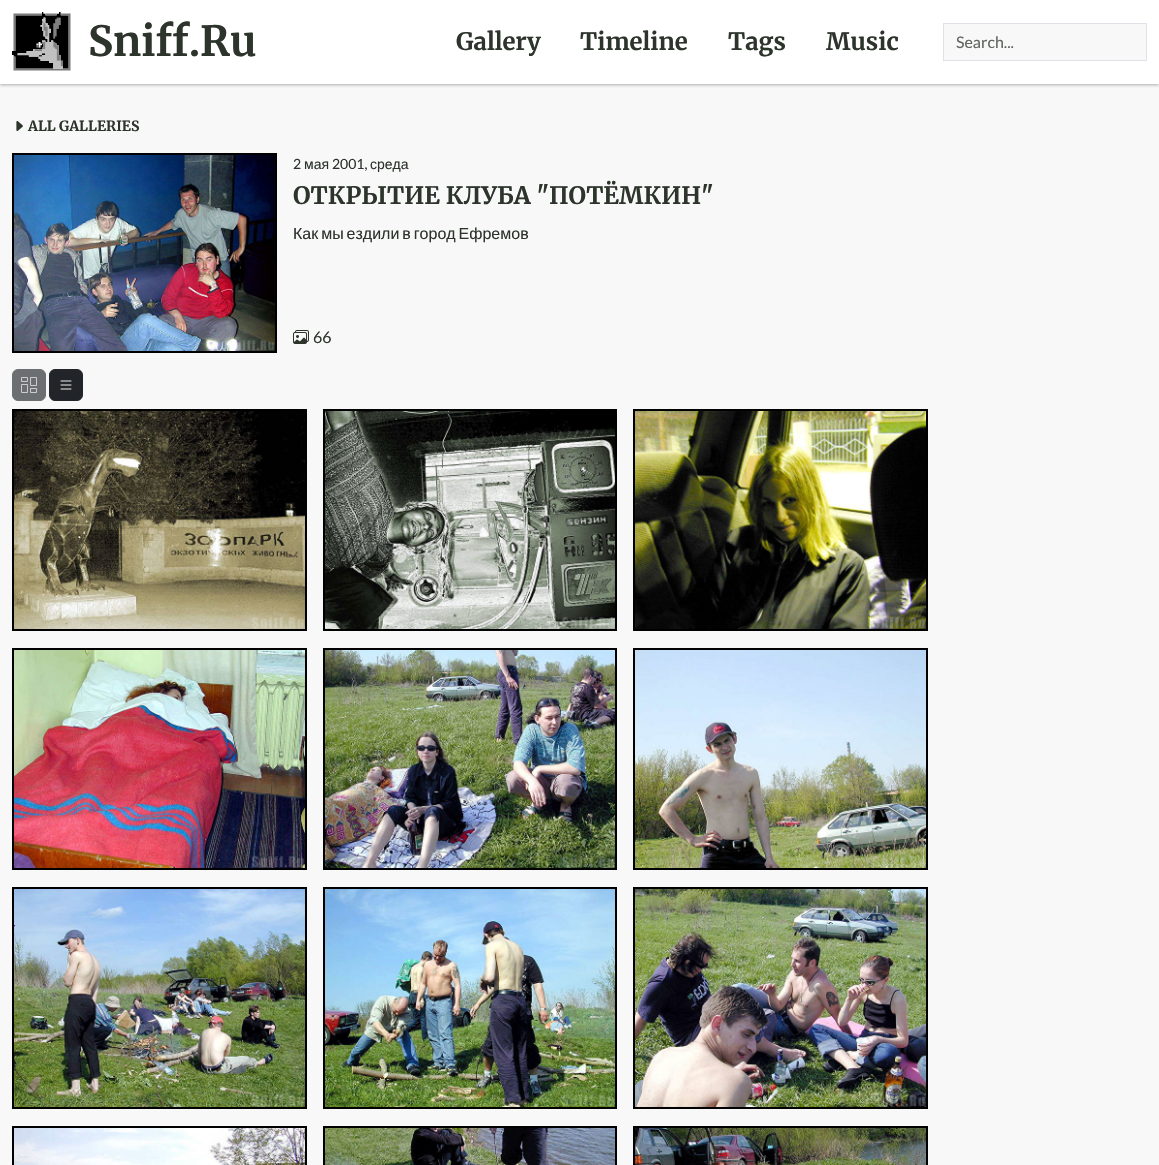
void draw(SkCanvas* canvas) {
	SkPaint paint;
	paint.setAntiAlias(true);
	auto spacedText = [&](const char* s, float x, float y, const SkFont& font, const SkPaint& ink, float letter, float word) {
		std::vector<SkGlyphID> glyphs(font.countText(s, strlen(s), SkTextEncoding::kUTF8));
		std::vector<float> xs(glyphs.size());
		font.textToGlyphs(s, strlen(s), SkTextEncoding::kUTF8, glyphs);
		font.getXPos(glyphs, xs, x);
		float extra = 0;
		for (size_t i = 0; i < glyphs.size(); i++) {
			xs[i] += extra;
			extra += letter + word * (glyphs[i] == font.unicharToGlyph(' '));
		}
		canvas->drawTextBlob(SkTextBlob::MakeFromPosHGlyphs(glyphs, xs, y, font), 0, 0, ink);
	};
	canvas->clear(0xfff8f8f8);
	paint.setColor(0x4d000000);
	paint.setMaskFilter(SkMaskFilter::MakeBlur(kNormal_SkBlurStyle, 1.5));
	canvas->drawRect(SkRect::MakeXYWH(0, 1, 1159, 84), paint);
	paint.setMaskFilter(nullptr);
	paint.setColor(0xffffffff);
	canvas->drawRect(SkRect::MakeXYWH(0, 0, 1159, 84), paint);
	canvas->drawImageRect(SkImages::DeferredFromEncodedData(SkData::MakeFromFileName("img1.png")), SkRect::MakeXYWH(12, 12, 59, 59), SkSamplingOptions());
	SkFont f1(fontMgr->matchFamilyStyle("Merriweather", SkFontStyle(300, SkFontStyle::kNormal_Width, SkFontStyle::kUpright_Slant)), 41.5);
	f1.setSubpixel(true);
	paint.setColor(0xff2c342c);
	canvas->drawString("Sniff.Ru", 88, 56, f1, paint);
	SkFont f2(fontMgr->matchFamilyStyle("Merriweather", SkFontStyle(300, SkFontStyle::kNormal_Width, SkFontStyle::kUpright_Slant)), 24);
	f2.setSubpixel(true);
	canvas->drawString("Gallery", 456, 50, f2, paint);
	canvas->drawString("Timeline", 580, 50, f2, paint);
	canvas->drawString("Tags", 728, 50, f2, paint);
	canvas->drawString("Music", 826, 50, f2, paint);
	paint.setColor(0xfff8f8f8);
	canvas->drawRect(SkRect::MakeXYWH(943.5, 23.5, 203, 37), paint);
	paint.setStroke(true);
	paint.setStrokeWidth(1);
	paint.setColor(0xffdee2e6);
	canvas->drawRect(SkRect::MakeXYWH(943.5, 23.5, 203, 37), paint);
	SkFont f3(fontMgr->matchFamilyStyle("Lato", SkFontStyle::Normal()), 16);
	f3.setSubpixel(true);
	paint.setStroke(false);
	paint.setColor(0xff5f655f);
	canvas->drawString("Search...", 956, 48, f3, paint);
	canvas->drawImageRect(SkImages::DeferredFromEncodedData(SkData::MakeFromFileName("img2.png")), SkRect::MakeXYWH(16, 121, 7, 10), SkSamplingOptions());
	SkFont f4(fontMgr->matchFamilyStyle("Merriweather", SkFontStyle(300, SkFontStyle::kNormal_Width, SkFontStyle::kUpright_Slant)), 14);
	f4.setSubpixel(true);
	paint.setColor(0xff2c342c);
	canvas->drawString("ALL GALLERIES", 28, 131, f4, paint);
	paint.setStroke(true);
	paint.setStrokeWidth(2);
	paint.setColor(0xff000000);
	canvas->drawRect(SkRect::MakeXYWH(13, 154, 263, 198), paint);
	canvas->drawImageRect(SkImages::DeferredFromEncodedData(SkData::MakeFromFileName("img3.png")), SkRect::MakeXYWH(14, 155, 261, 196), SkSamplingOptions());
	SkFont f5(fontMgr->matchFamilyStyle("Lato", SkFontStyle::Normal()), 14);
	f5.setSubpixel(true);
	paint.setStroke(false);
	paint.setColor(0xff2c342c);
	canvas->drawString("2", 293, 169, f5, paint);
	SkFont f6(fontMgr->matchFamilyStyle("Liberation Sans", SkFontStyle::Normal()), 14);
	f6.setSubpixel(true);
	canvas->drawString("мая", 304, 169, f6, paint);
	canvas->drawString("2001,", 332, 169, f5, paint);
	canvas->drawString("среда", 370, 169, f6, paint);
	canvas->drawString("ОТКРЫТИЕ КЛУБА \"ПОТЁМКИН\"", 293, 204, f2, paint);
	SkFont f7(fontMgr->matchFamilyStyle("Liberation Sans", SkFontStyle::Normal()), 16);
	f7.setSubpixel(true);
	spacedText("Как мы ездили в город Ефремов", 293, 239, f7, paint, 0, -1.5);
	canvas->drawImageRect(SkImages::DeferredFromEncodedData(SkData::MakeFromFileName("img4.png")), SkRect::MakeXYWH(293, 330, 16, 14), SkSamplingOptions());
	canvas->drawString("66", 313, 343, f3, paint);
	paint.setColor(0xff6c6f71);
	canvas->drawRoundRect(SkRect::MakeXYWH(12.5, 369.5, 33, 31), 5.5, 5.5, paint);
	paint.setStroke(true);
	paint.setStrokeWidth(1);
	canvas->drawRoundRect(SkRect::MakeXYWH(12.5, 369.5, 33, 31), 5.5, 5.5, paint);
	canvas->drawImageRect(SkImages::DeferredFromEncodedData(SkData::MakeFromFileName("img5.png")), SkRect::MakeXYWH(21, 377, 16, 16), SkSamplingOptions());
	paint.setStroke(false);
	paint.setColor(0xff212529);
	canvas->drawRoundRect(SkRect::MakeXYWH(49.5, 369.5, 33, 31), 5.5, 5.5, paint);
	paint.setStroke(true);
	canvas->drawRoundRect(SkRect::MakeXYWH(49.5, 369.5, 33, 31), 5.5, 5.5, paint);
	canvas->drawImageRect(SkImages::DeferredFromEncodedData(SkData::MakeFromFileName("img6.png")), SkRect::MakeXYWH(60, 380, 12, 10), SkSamplingOptions());
	paint.setStrokeWidth(2);
	paint.setColor(0xff000000);
	canvas->drawRect(SkRect::MakeXYWH(13, 410, 293, 220), paint);
	canvas->drawImageRect(SkImages::DeferredFromEncodedData(SkData::MakeFromFileName("img7.png")), SkRect::MakeXYWH(14, 411, 291, 218), SkSamplingOptions());
	canvas->drawRect(SkRect::MakeXYWH(324, 410, 292, 220), paint);
	canvas->drawImageRect(SkImages::DeferredFromEncodedData(SkData::MakeFromFileName("img8.png")), SkRect::MakeXYWH(325, 411, 290, 218), SkSamplingOptions());
	canvas->drawRect(SkRect::MakeXYWH(634, 410, 293, 220), paint);
	canvas->drawImageRect(SkImages::DeferredFromEncodedData(SkData::MakeFromFileName("img9.png")), SkRect::MakeXYWH(635, 411, 291, 218), SkSamplingOptions());
	canvas->drawRect(SkRect::MakeXYWH(13, 649, 293, 220), paint);
	canvas->drawImageRect(SkImages::DeferredFromEncodedData(SkData::MakeFromFileName("img10.png")), SkRect::MakeXYWH(14, 650, 291, 218), SkSamplingOptions());
	canvas->drawRect(SkRect::MakeXYWH(324, 649, 292, 220), paint);
	canvas->drawImageRect(SkImages::DeferredFromEncodedData(SkData::MakeFromFileName("img11.png")), SkRect::MakeXYWH(325, 650, 290, 218), SkSamplingOptions());
	canvas->drawRect(SkRect::MakeXYWH(634, 649, 293, 220), paint);
	canvas->drawImageRect(SkImages::DeferredFromEncodedData(SkData::MakeFromFileName("img12.png")), SkRect::MakeXYWH(635, 650, 291, 218), SkSamplingOptions());
	canvas->drawRect(SkRect::MakeXYWH(13, 888, 293, 220), paint);
	canvas->drawImageRect(SkImages::DeferredFromEncodedData(SkData::MakeFromFileName("img13.png")), SkRect::MakeXYWH(14, 889, 291, 218), SkSamplingOptions());
	canvas->drawRect(SkRect::MakeXYWH(324, 888, 292, 220), paint);
	canvas->drawImageRect(SkImages::DeferredFromEncodedData(SkData::MakeFromFileName("img14.png")), SkRect::MakeXYWH(325, 889, 290, 218), SkSamplingOptions());
	canvas->drawRect(SkRect::MakeXYWH(634, 888, 293, 220), paint);
	canvas->drawImageRect(SkImages::DeferredFromEncodedData(SkData::MakeFromFileName("img15.png")), SkRect::MakeXYWH(635, 889, 291, 218), SkSamplingOptions());
	canvas->drawRect(SkRect::MakeXYWH(13, 1127, 293, 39), paint);
	canvas->drawImageRect(SkImages::DeferredFromEncodedData(SkData::MakeFromFileName("img16.png")), SkRect::MakeXYWH(14, 1128, 291, 37), SkSamplingOptions());
	canvas->drawRect(SkRect::MakeXYWH(324, 1127, 292, 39), paint);
	canvas->drawImageRect(SkImages::DeferredFromEncodedData(SkData::MakeFromFileName("img17.png")), SkRect::MakeXYWH(325, 1128, 290, 37), SkSamplingOptions());
	canvas->drawRect(SkRect::MakeXYWH(634, 1127, 293, 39), paint);
	canvas->drawImageRect(SkImages::DeferredFromEncodedData(SkData::MakeFromFileName("img18.png")), SkRect::MakeXYWH(635, 1128, 291, 37), SkSamplingOptions());
}
